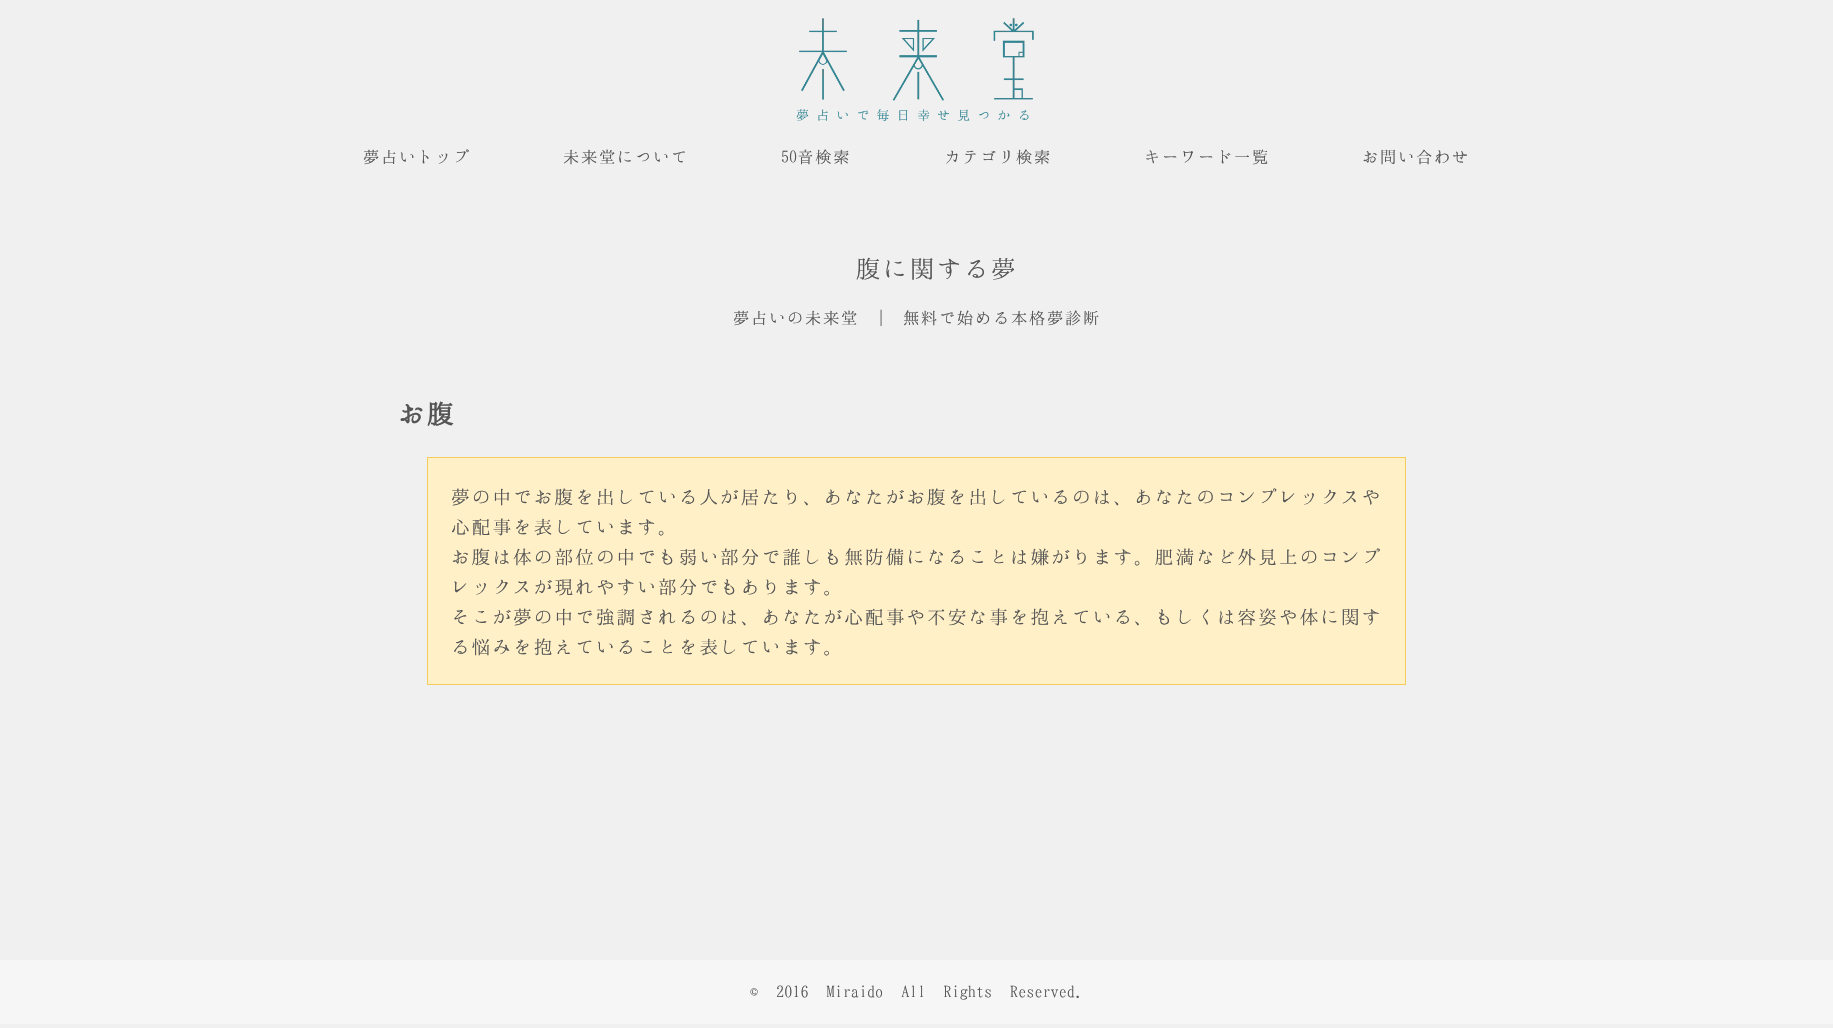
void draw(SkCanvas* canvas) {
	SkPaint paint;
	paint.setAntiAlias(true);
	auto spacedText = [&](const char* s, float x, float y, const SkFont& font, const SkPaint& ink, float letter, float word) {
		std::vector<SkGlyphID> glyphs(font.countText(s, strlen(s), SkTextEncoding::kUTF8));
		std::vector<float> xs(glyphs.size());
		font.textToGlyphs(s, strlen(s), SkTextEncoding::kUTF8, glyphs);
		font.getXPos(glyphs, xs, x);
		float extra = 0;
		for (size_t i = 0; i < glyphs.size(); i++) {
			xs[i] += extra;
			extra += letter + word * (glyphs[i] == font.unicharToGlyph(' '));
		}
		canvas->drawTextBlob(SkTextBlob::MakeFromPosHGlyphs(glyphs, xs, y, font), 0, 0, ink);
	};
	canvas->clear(0xfff0f0f0);
	canvas->drawImageRect(SkImages::DeferredFromEncodedData(SkData::MakeFromFileName("img1.png")), SkRect::MakeXYWH(799, 18, 235, 83), SkSamplingOptions());
	SkFont f1(fontMgr->matchFamilyStyle("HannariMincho", SkFontStyle::Normal()), 14.4);
	f1.setSubpixel(true);
	paint.setColor(0xff358794);
	spacedText("夢占いで毎日幸せ見つかる", 796, 120, f1, paint, 5.75, 0);
	SkFont f2(fontMgr->matchFamilyStyle("HannariMincho", SkFontStyle::Normal()), 18);
	f2.setSubpixel(true);
	paint.setColor(0xff555555);
	canvas->drawString("夢占いトップ", 363, 163, f2, paint);
	canvas->drawString("未来堂について", 563, 163, f2, paint);
	canvas->drawString("50音検索", 781, 163, f2, paint);
	canvas->drawString("カテゴリ検索", 944, 163, f2, paint);
	canvas->drawString("キーワード一覧", 1144, 163, f2, paint);
	canvas->drawString("お問い合わせ", 1362, 163, f2, paint);
	SkFont f3(fontMgr->matchFamilyStyle("Noto Sans", SkFontStyle(100, SkFontStyle::kNormal_Width, SkFontStyle::kUpright_Slant)), 40);
	f3.setSubpixel(true);
	paint.setColor(0xff386cbf);
	canvas->drawString("お", 815, 278, f3, paint);
	SkFont f4(fontMgr->matchFamilyStyle("HannariMincho", SkFontStyle::Normal()), 27);
	f4.setSubpixel(true);
	paint.setColor(0xff555555);
	canvas->drawString("腹に関する夢", 856, 278, f4, paint);
	canvas->drawString("夢占いの未来堂 | 無料で始める本格夢診断", 733, 324, f2, paint);
	SkFont f5(fontMgr->matchFamilyStyle("HannariMincho", SkFontStyle::Bold()), 29);
	f5.setSubpixel(true);
	canvas->drawString("お腹", 398, 424, f5, paint);
	paint.setColor(0xfffff0c7);
	canvas->drawRect(SkRect::MakeXYWH(427.5, 457.5, 978, 227), paint);
	paint.setStroke(true);
	paint.setStrokeWidth(1);
	paint.setColor(0xfff5cb5d);
	canvas->drawRect(SkRect::MakeXYWH(427.5, 457.5, 978, 227), paint);
	SkFont f6(fontMgr->matchFamilyStyle("HannariMincho", SkFontStyle::Normal()), 20.7);
	f6.setSubpixel(true);
	paint.setStroke(false);
	paint.setColor(0xff555555);
	canvas->drawString("夢の中でお腹を出している人が居たり、あなたがお腹を出しているのは、あなたのコンプレックスや", 451, 504, f6, paint);
	canvas->drawString("心配事を表しています。", 451, 534, f6, paint);
	canvas->drawString("お腹は体の部位の中でも弱い部分で誰しも無防備になることは嫌がります。肥満など外見上のコンプ", 451, 564, f6, paint);
	canvas->drawString("レックスが現れやすい部分でもあります。", 451, 594, f6, paint);
	canvas->drawString("そこが夢の中で強調されるのは、あなたが心配事や不安な事を抱えている、もしくは容姿や体に関す", 451, 624, f6, paint);
	canvas->drawString("る悩みを抱えていることを表しています。", 451, 654, f6, paint);
	paint.setColor(0xfff6f6f6);
	canvas->drawRect(SkRect::MakeXYWH(0, 960, 1833, 64), paint);
	paint.setColor(0xff555555);
	canvas->drawString("© 2016 Miraido All Rights Reserved.", 750, 998, f2, paint);
}
